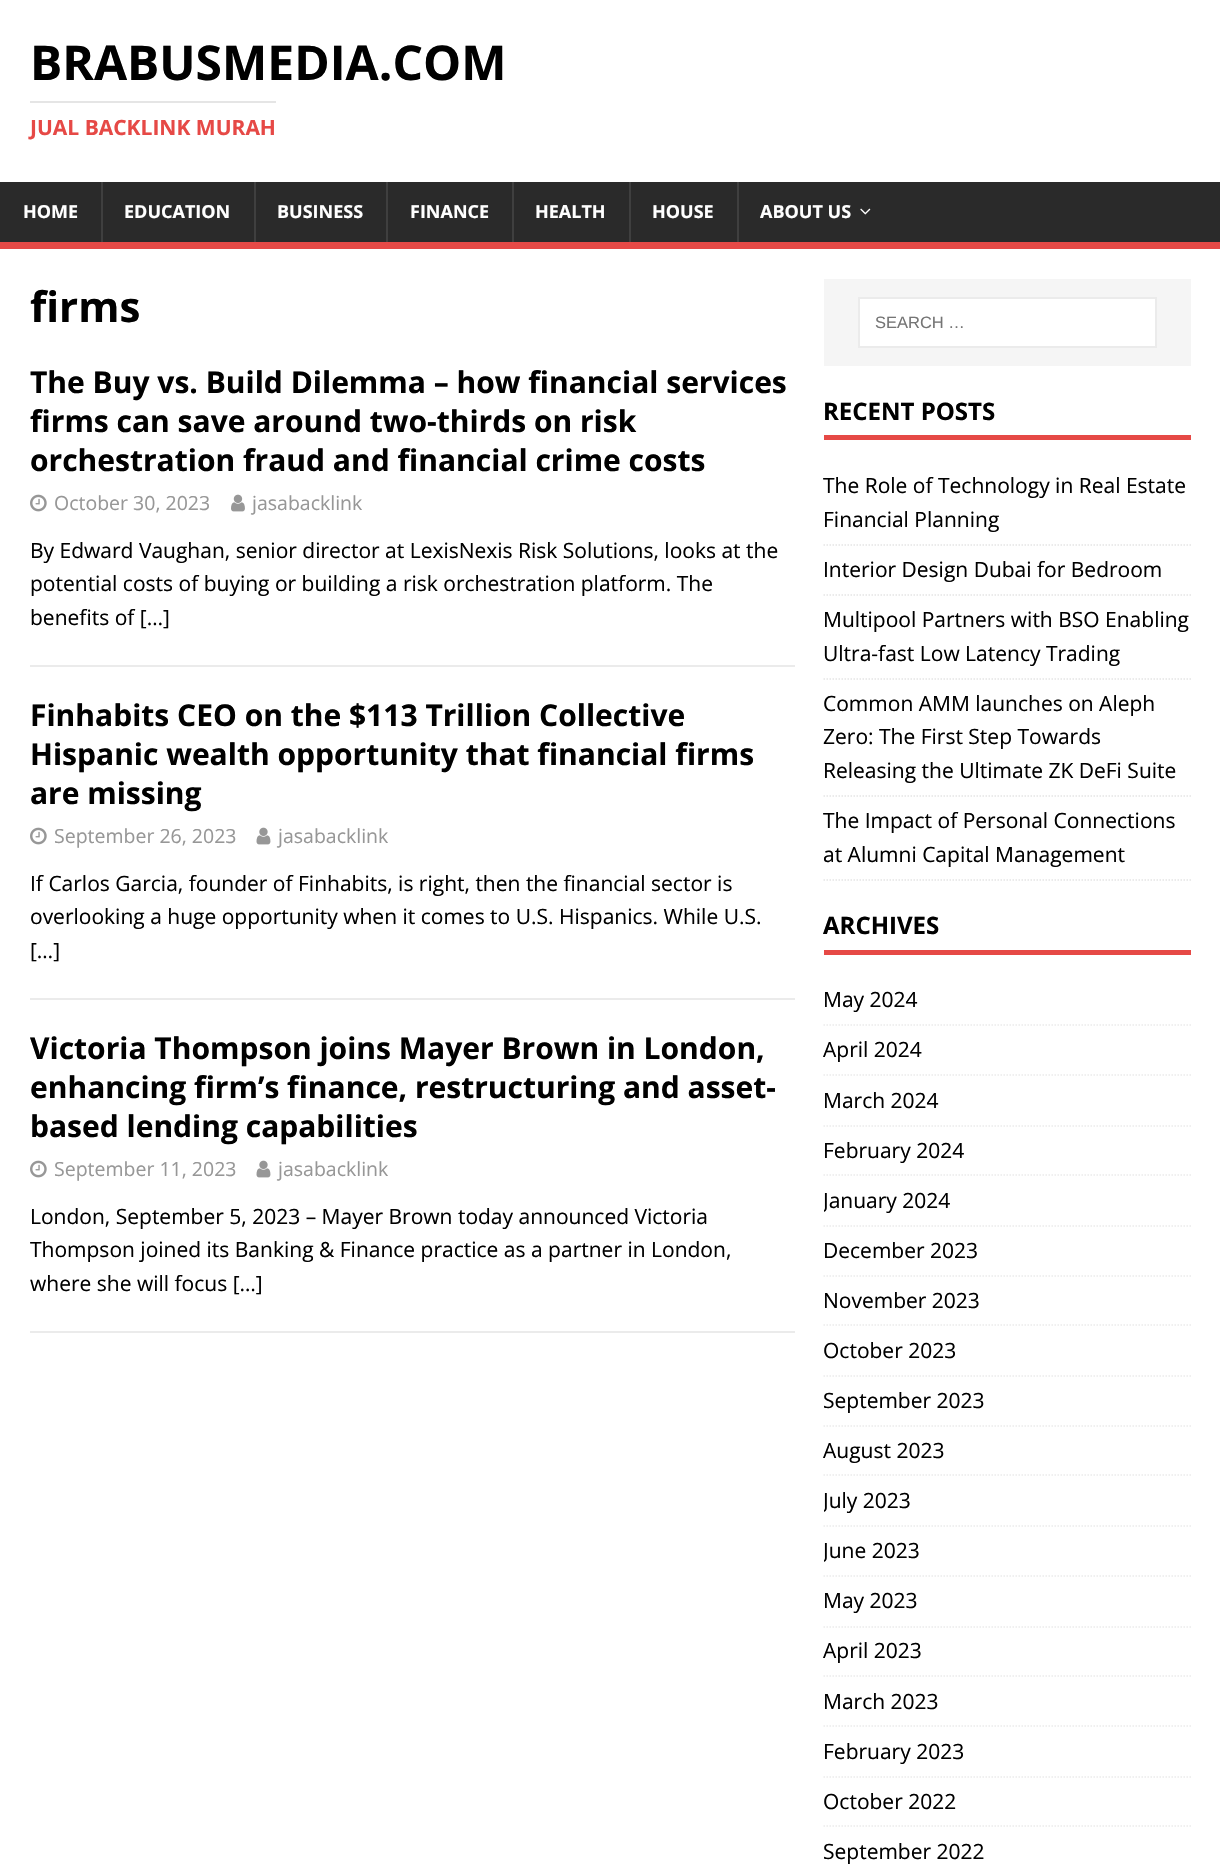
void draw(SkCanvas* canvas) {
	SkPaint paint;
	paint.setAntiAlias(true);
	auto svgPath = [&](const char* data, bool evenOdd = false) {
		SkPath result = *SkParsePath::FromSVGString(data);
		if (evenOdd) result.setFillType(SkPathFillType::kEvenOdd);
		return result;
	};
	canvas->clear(0xffffffff);
	SkFont f1(fontMgr->matchFamilyStyle("Open Sans", SkFontStyle::Bold()), 48);
	f1.setSubpixel(true);
	paint.setColor(0xff000000);
	canvas->drawString("BRABUSMEDIA.COM", 30, 80, f1, paint);
	paint.setColor(0xffe5e5e5);
	canvas->drawRect(SkRect::MakeXYWH(30, 101, 246, 2), paint);
	SkFont f2(fontMgr->matchFamilyStyle("Open Sans", SkFontStyle::Bold()), 21);
	f2.setSubpixel(true);
	paint.setColor(0xffe64946);
	canvas->drawString("JUAL BACKLINK MURAH", 30, 135, f2, paint);
	paint.setColor(0xff2a2a2a);
	canvas->drawRect(SkRect::MakeXYWH(0, 182, 1220, 60), paint);
	paint.setColor(0xffe64946);
	canvas->drawRect(SkRect::MakeXYWH(0, 242, 1220, 7), paint);
	SkFont f3(fontMgr->matchFamilyStyle("Open Sans", SkFontStyle::Bold()), 18);
	f3.setSubpixel(true);
	paint.setColor(0xffffffff);
	canvas->drawString("HOME", 23, 218, f3, paint);
	paint.setColor(0xff3f3f3f);
	canvas->drawRect(SkRect::MakeXYWH(101, 182, 2, 60), paint);
	paint.setColor(0xffffffff);
	canvas->drawString("EDUCATION", 124, 218, f3, paint);
	paint.setColor(0xff3f3f3f);
	canvas->drawRect(SkRect::MakeXYWH(254, 182, 2, 60), paint);
	paint.setColor(0xffffffff);
	canvas->drawString("BUSINESS", 277, 218, f3, paint);
	paint.setColor(0xff3f3f3f);
	canvas->drawRect(SkRect::MakeXYWH(386, 182, 2, 60), paint);
	paint.setColor(0xffffffff);
	canvas->drawString("FINANCE", 410, 218, f3, paint);
	paint.setColor(0xff3f3f3f);
	canvas->drawRect(SkRect::MakeXYWH(512, 182, 2, 60), paint);
	paint.setColor(0xffffffff);
	canvas->drawString("HEALTH", 535, 218, f3, paint);
	paint.setColor(0xff3f3f3f);
	canvas->drawRect(SkRect::MakeXYWH(629, 182, 2, 60), paint);
	paint.setColor(0xffffffff);
	canvas->drawString("HOUSE", 652, 218, f3, paint);
	paint.setColor(0xff3f3f3f);
	canvas->drawRect(SkRect::MakeXYWH(737, 182, 2, 60), paint);
	paint.setColor(0xffffffff);
	canvas->drawString("ABOUT US", 760, 218, f3, paint);
	canvas->drawImageRect(SkImages::DeferredFromEncodedData(SkData::MakeFromFileName("img1.png")), SkRect::MakeXYWH(860, 208, 11, 7), SkSamplingOptions());
	SkFont f4(fontMgr->matchFamilyStyle("Open Sans", SkFontStyle::Bold()), 42);
	f4.setSubpixel(true);
	paint.setColor(0xff000000);
	canvas->drawString("firms", 30, 322, f4, paint);
	paint.setColor(0xffebebeb);
	canvas->drawRect(SkRect::MakeXYWH(30, 665, 765, 2), paint);
	SkFont f5(fontMgr->matchFamilyStyle("Open Sans", SkFontStyle::Bold()), 30);
	f5.setSubpixel(true);
	paint.setColor(0xff000000);
	canvas->drawString("The Buy vs. Build Dilemma – how financial services", 30, 393, f5, paint);
	canvas->drawString("firms can save around two-thirds on risk", 30, 432, f5, paint);
	canvas->drawString("orchestration fraud and financial crime costs", 30, 471, f5, paint);
	canvas->drawImageRect(SkImages::DeferredFromEncodedData(SkData::MakeFromFileName("img2.png")), SkRect::MakeXYWH(30, 494, 17, 18), SkSamplingOptions());
	SkFont f6(fontMgr->matchFamilyStyle("Open Sans", SkFontStyle::Normal()), 19.5);
	f6.setSubpixel(true);
	paint.setColor(0xff979797);
	canvas->drawString("October 30, 2023", 54, 510, f6, paint);
	canvas->drawImageRect(SkImages::DeferredFromEncodedData(SkData::MakeFromFileName("img3.png")), SkRect::MakeXYWH(231, 494, 14, 18), SkSamplingOptions());
	canvas->drawString("jasabacklink", 252, 510, f6, paint);
	SkFont f7(fontMgr->matchFamilyStyle("Open Sans", SkFontStyle::Normal()), 21);
	f7.setSubpixel(true);
	paint.setColor(0xff000000);
	canvas->drawString("By Edward Vaughan, senior director at LexisNexis Risk Solutions, looks at the", 30, 558, f7, paint);
	canvas->drawString("potential costs of buying or building a risk orchestration platform. The", 30, 591, f7, paint);
	canvas->drawString("benefits of […]", 30, 625, f7, paint);
	paint.setColor(0xffebebeb);
	canvas->drawRect(SkRect::MakeXYWH(30, 998, 765, 2), paint);
	paint.setColor(0xff000000);
	canvas->drawString("Finhabits CEO on the $113 Trillion Collective", 30, 726, f5, paint);
	canvas->drawString("Hispanic wealth opportunity that financial firms", 30, 765, f5, paint);
	canvas->drawString("are missing", 30, 804, f5, paint);
	canvas->drawImageRect(SkImages::DeferredFromEncodedData(SkData::MakeFromFileName("img2.png")), SkRect::MakeXYWH(30, 827, 17, 18), SkSamplingOptions());
	paint.setColor(0xff979797);
	canvas->drawString("September 26, 2023", 54, 843, f6, paint);
	canvas->drawImageRect(SkImages::DeferredFromEncodedData(SkData::MakeFromFileName("img4.png")), SkRect::MakeXYWH(256, 827, 15, 18), SkSamplingOptions());
	canvas->drawString("jasabacklink", 278, 843, f6, paint);
	paint.setColor(0xff000000);
	canvas->drawString("If Carlos Garcia, founder of Finhabits, is right, then the financial sector is", 30, 891, f7, paint);
	canvas->drawString("overlooking a huge opportunity when it comes to U.S. Hispanics. While U.S.", 30, 924, f7, paint);
	canvas->drawString("[…]", 30, 958, f7, paint);
	paint.setColor(0xffebebeb);
	canvas->drawRect(SkRect::MakeXYWH(30, 1331, 765, 2), paint);
	paint.setColor(0xff000000);
	canvas->drawString("Victoria Thompson joins Mayer Brown in London,", 30, 1059, f5, paint);
	canvas->drawString("enhancing firm’s finance, restructuring and asset-", 30, 1098, f5, paint);
	canvas->drawString("based lending capabilities", 30, 1137, f5, paint);
	canvas->drawImageRect(SkImages::DeferredFromEncodedData(SkData::MakeFromFileName("img2.png")), SkRect::MakeXYWH(30, 1160, 17, 18), SkSamplingOptions());
	paint.setColor(0xff979797);
	canvas->drawString("September 11, 2023", 54, 1176, f6, paint);
	canvas->drawImageRect(SkImages::DeferredFromEncodedData(SkData::MakeFromFileName("img4.png")), SkRect::MakeXYWH(256, 1160, 15, 18), SkSamplingOptions());
	canvas->drawString("jasabacklink", 278, 1176, f6, paint);
	paint.setColor(0xff000000);
	canvas->drawString("London, September 5, 2023 – Mayer Brown today announced Victoria", 30, 1224, f7, paint);
	canvas->drawString("Thompson joined its Banking & Finance practice as a partner in London,", 30, 1257, f7, paint);
	canvas->drawString("where she will focus […]", 30, 1291, f7, paint);
	paint.setColor(0xfff5f5f5);
	canvas->drawRect(SkRect::MakeXYWH(824, 279, 367, 87), paint);
	paint.setColor(0xffffffff);
	canvas->drawRect(SkRect::MakeXYWH(859, 298, 297, 49), paint);
	paint.setStroke(true);
	paint.setStrokeWidth(2);
	paint.setColor(0xffebebeb);
	canvas->drawRect(SkRect::MakeXYWH(859, 298, 297, 49), paint);
	SkFont f8(fontMgr->matchFamilyStyle("Liberation Sans", SkFontStyle::Normal()), 16.5);
	f8.setSubpixel(true);
	paint.setStroke(false);
	paint.setColor(0xff757575);
	canvas->drawString("SEARCH …", 875, 328, f8, paint);
	paint.setColor(0xffe64946);
	canvas->drawRect(SkRect::MakeXYWH(824, 435, 367, 5), paint);
	SkFont f9(fontMgr->matchFamilyStyle("Open Sans", SkFontStyle::Bold()), 24);
	f9.setSubpixel(true);
	paint.setColor(0xff000000);
	canvas->drawString("RECENT POSTS", 823, 420, f9, paint);
	paint.setStroke(true);
	paint.setStrokeWidth(1.5);
	paint.setColor(0xffe5e5e5);
	paint.setPathEffect(SkDashPathEffect::Make({{1.5f, 1.5f}}, 0));
	canvas->drawPath(svgPath("M823.5 545H1191"), paint);
	paint.setPathEffect(nullptr);
	paint.setStroke(false);
	paint.setColor(0xff000000);
	canvas->drawString("The Role of Technology in Real Estate", 823, 493, f7, paint);
	canvas->drawString("Financial Planning", 823, 527, f7, paint);
	paint.setStroke(true);
	paint.setColor(0xffe5e5e5);
	paint.setPathEffect(SkDashPathEffect::Make({{1.5f, 1.5f}}, 0));
	canvas->drawPath(svgPath("M823.5 595H1191"), paint);
	paint.setPathEffect(nullptr);
	paint.setStroke(false);
	paint.setColor(0xff000000);
	canvas->drawString("Interior Design Dubai for Bedroom", 823, 577, f7, paint);
	paint.setStroke(true);
	paint.setColor(0xffe5e5e5);
	paint.setPathEffect(SkDashPathEffect::Make({{1.5f, 1.5f}}, 0));
	canvas->drawPath(svgPath("M823.5 679H1191"), paint);
	paint.setPathEffect(nullptr);
	paint.setStroke(false);
	paint.setColor(0xff000000);
	canvas->drawString("Multipool Partners with BSO Enabling", 823, 627, f7, paint);
	canvas->drawString("Ultra-fast Low Latency Trading", 823, 661, f7, paint);
	paint.setStroke(true);
	paint.setColor(0xffe5e5e5);
	paint.setPathEffect(SkDashPathEffect::Make({{1.5f, 1.5f}}, 0));
	canvas->drawPath(svgPath("M823.5 796H1191"), paint);
	paint.setPathEffect(nullptr);
	paint.setStroke(false);
	paint.setColor(0xff000000);
	canvas->drawString("Common AMM launches on Aleph", 823, 711, f7, paint);
	canvas->drawString("Zero: The First Step Towards", 823, 744, f7, paint);
	canvas->drawString("Releasing the Ultimate ZK DeFi Suite", 823, 778, f7, paint);
	paint.setStroke(true);
	paint.setColor(0xffe5e5e5);
	paint.setPathEffect(SkDashPathEffect::Make({{1.5f, 1.5f}}, 0));
	canvas->drawPath(svgPath("M823.5 880H1191"), paint);
	paint.setPathEffect(nullptr);
	paint.setStroke(false);
	paint.setColor(0xff000000);
	canvas->drawString("The Impact of Personal Connections", 823, 828, f7, paint);
	canvas->drawString("at Alumni Capital Management", 823, 862, f7, paint);
	paint.setColor(0xffe64946);
	canvas->drawRect(SkRect::MakeXYWH(824, 950, 367, 5), paint);
	paint.setColor(0xff000000);
	canvas->drawString("ARCHIVES", 823, 934, f9, paint);
	paint.setStroke(true);
	paint.setColor(0xffebebeb);
	paint.setPathEffect(SkDashPathEffect::Make({{1.5f, 1.5f}}, 0));
	canvas->drawPath(svgPath("M823.5 1025H1191"), paint);
	paint.setPathEffect(nullptr);
	paint.setStroke(false);
	paint.setColor(0xff000000);
	canvas->drawString("May 2024", 823, 1007, f7, paint);
	paint.setStroke(true);
	paint.setColor(0xffebebeb);
	paint.setPathEffect(SkDashPathEffect::Make({{1.5f, 1.5f}}, 0));
	canvas->drawPath(svgPath("M823.5 1075H1191"), paint);
	paint.setPathEffect(nullptr);
	paint.setStroke(false);
	paint.setColor(0xff000000);
	canvas->drawString("April 2024", 823, 1057, f7, paint);
	paint.setStroke(true);
	paint.setColor(0xffebebeb);
	paint.setPathEffect(SkDashPathEffect::Make({{1.5f, 1.5f}}, 0));
	canvas->drawPath(svgPath("M823.5 1126H1191"), paint);
	paint.setPathEffect(nullptr);
	paint.setStroke(false);
	paint.setColor(0xff000000);
	canvas->drawString("March 2024", 823, 1108, f7, paint);
	paint.setStroke(true);
	paint.setColor(0xffebebeb);
	paint.setPathEffect(SkDashPathEffect::Make({{1.5f, 1.5f}}, 0));
	canvas->drawPath(svgPath("M823.5 1175H1191"), paint);
	paint.setPathEffect(nullptr);
	paint.setStroke(false);
	paint.setColor(0xff000000);
	canvas->drawString("February 2024", 823, 1158, f7, paint);
	paint.setStroke(true);
	paint.setColor(0xffebebeb);
	paint.setPathEffect(SkDashPathEffect::Make({{1.5f, 1.5f}}, 0));
	canvas->drawPath(svgPath("M823.5 1226H1191"), paint);
	paint.setPathEffect(nullptr);
	canvas->save();
	canvas->clipRect(SkRect::MakeXYWH(824, 911, 367, 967));
	paint.setStroke(false);
	paint.setColor(0xff000000);
	canvas->drawString("January 2024", 823, 1208, f7, paint);
	canvas->restore();
	paint.setStroke(true);
	paint.setColor(0xffebebeb);
	paint.setPathEffect(SkDashPathEffect::Make({{1.5f, 1.5f}}, 0));
	canvas->drawPath(svgPath("M823.5 1276H1191"), paint);
	paint.setPathEffect(nullptr);
	paint.setStroke(false);
	paint.setColor(0xff000000);
	canvas->drawString("December 2023", 823, 1258, f7, paint);
	paint.setStroke(true);
	paint.setColor(0xffebebeb);
	paint.setPathEffect(SkDashPathEffect::Make({{1.5f, 1.5f}}, 0));
	canvas->drawPath(svgPath("M823.5 1325H1191"), paint);
	paint.setPathEffect(nullptr);
	paint.setStroke(false);
	paint.setColor(0xff000000);
	canvas->drawString("November 2023", 823, 1308, f7, paint);
	paint.setStroke(true);
	paint.setColor(0xffebebeb);
	paint.setPathEffect(SkDashPathEffect::Make({{1.5f, 1.5f}}, 0));
	canvas->drawPath(svgPath("M823.5 1376H1191"), paint);
	paint.setPathEffect(nullptr);
	paint.setStroke(false);
	paint.setColor(0xff000000);
	canvas->drawString("October 2023", 823, 1358, f7, paint);
	paint.setStroke(true);
	paint.setColor(0xffebebeb);
	paint.setPathEffect(SkDashPathEffect::Make({{1.5f, 1.5f}}, 0));
	canvas->drawPath(svgPath("M823.5 1426H1191"), paint);
	paint.setPathEffect(nullptr);
	paint.setStroke(false);
	paint.setColor(0xff000000);
	canvas->drawString("September 2023", 823, 1408, f7, paint);
	paint.setStroke(true);
	paint.setColor(0xffebebeb);
	paint.setPathEffect(SkDashPathEffect::Make({{1.5f, 1.5f}}, 0));
	canvas->drawPath(svgPath("M823.5 1475H1191"), paint);
	paint.setPathEffect(nullptr);
	paint.setStroke(false);
	paint.setColor(0xff000000);
	canvas->drawString("August 2023", 823, 1458, f7, paint);
	paint.setStroke(true);
	paint.setColor(0xffebebeb);
	paint.setPathEffect(SkDashPathEffect::Make({{1.5f, 1.5f}}, 0));
	canvas->drawPath(svgPath("M823.5 1526H1191"), paint);
	paint.setPathEffect(nullptr);
	canvas->save();
	canvas->clipRect(SkRect::MakeXYWH(824, 911, 367, 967));
	paint.setStroke(false);
	paint.setColor(0xff000000);
	canvas->drawString("July 2023", 823, 1508, f7, paint);
	canvas->restore();
	paint.setStroke(true);
	paint.setColor(0xffebebeb);
	paint.setPathEffect(SkDashPathEffect::Make({{1.5f, 1.5f}}, 0));
	canvas->drawPath(svgPath("M823.5 1576H1191"), paint);
	paint.setPathEffect(nullptr);
	canvas->save();
	canvas->clipRect(SkRect::MakeXYWH(824, 911, 367, 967));
	paint.setStroke(false);
	paint.setColor(0xff000000);
	canvas->drawString("June 2023", 823, 1558, f7, paint);
	canvas->restore();
	paint.setStroke(true);
	paint.setColor(0xffebebeb);
	paint.setPathEffect(SkDashPathEffect::Make({{1.5f, 1.5f}}, 0));
	canvas->drawPath(svgPath("M823.5 1627H1191"), paint);
	paint.setPathEffect(nullptr);
	paint.setStroke(false);
	paint.setColor(0xff000000);
	canvas->drawString("May 2023", 823, 1608, f7, paint);
	paint.setStroke(true);
	paint.setColor(0xffebebeb);
	paint.setPathEffect(SkDashPathEffect::Make({{1.5f, 1.5f}}, 0));
	canvas->drawPath(svgPath("M823.5 1676H1191"), paint);
	paint.setPathEffect(nullptr);
	paint.setStroke(false);
	paint.setColor(0xff000000);
	canvas->drawString("April 2023", 823, 1658, f7, paint);
	paint.setStroke(true);
	paint.setColor(0xffebebeb);
	paint.setPathEffect(SkDashPathEffect::Make({{1.5f, 1.5f}}, 0));
	canvas->drawPath(svgPath("M823.5 1726H1191"), paint);
	paint.setPathEffect(nullptr);
	paint.setStroke(false);
	paint.setColor(0xff000000);
	canvas->drawString("March 2023", 823, 1709, f7, paint);
	paint.setStroke(true);
	paint.setColor(0xffebebeb);
	paint.setPathEffect(SkDashPathEffect::Make({{1.5f, 1.5f}}, 0));
	canvas->drawPath(svgPath("M823.5 1777H1191"), paint);
	paint.setPathEffect(nullptr);
	paint.setStroke(false);
	paint.setColor(0xff000000);
	canvas->drawString("February 2023", 823, 1759, f7, paint);
	paint.setStroke(true);
	paint.setColor(0xffebebeb);
	paint.setPathEffect(SkDashPathEffect::Make({{1.5f, 1.5f}}, 0));
	canvas->drawPath(svgPath("M823.5 1826H1191"), paint);
	paint.setPathEffect(nullptr);
	paint.setStroke(false);
	paint.setColor(0xff000000);
	canvas->drawString("October 2022", 823, 1809, f7, paint);
	canvas->drawString("September 2022", 823, 1859, f7, paint);
}
